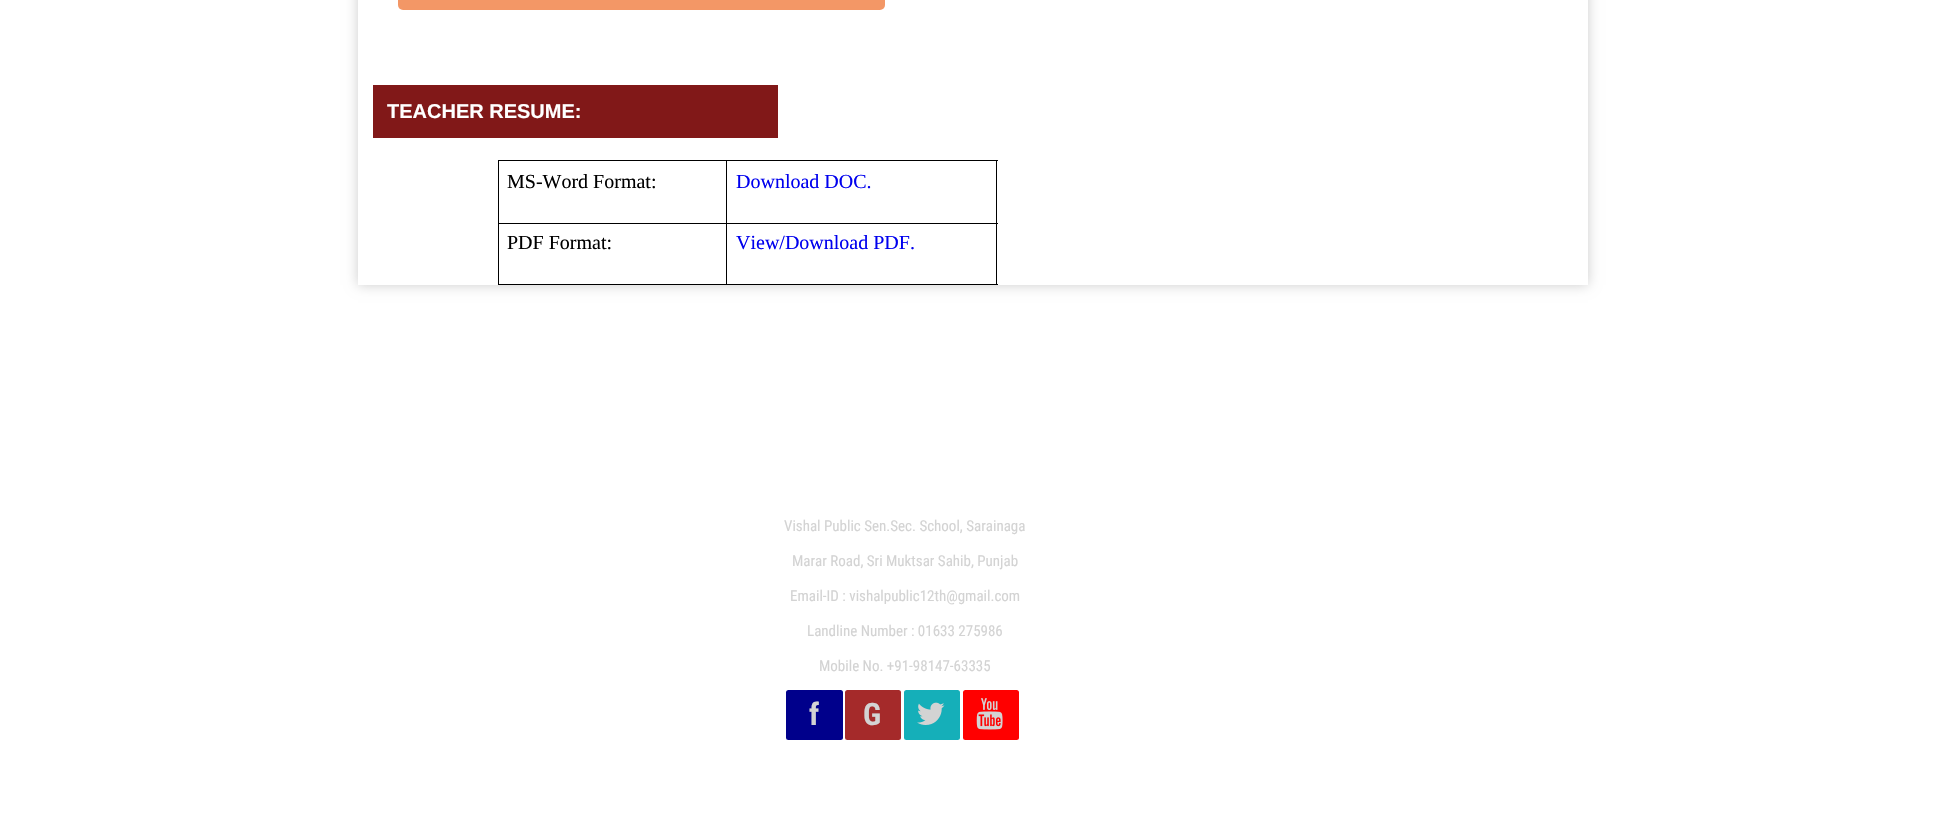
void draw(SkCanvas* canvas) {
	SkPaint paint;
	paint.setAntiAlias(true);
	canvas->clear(0xffffffff);
	paint.setColor(0xffcdcdcd);
	paint.setMaskFilter(SkMaskFilter::MakeBlur(kNormal_SkBlurStyle, 6));
	canvas->drawRect(SkRect::MakeXYWH(358, -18, 1230, 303), paint);
	paint.setMaskFilter(nullptr);
	paint.setColor(0xffffffff);
	canvas->drawRect(SkRect::MakeXYWH(358, 0, 1230, 285), paint);
	paint.setColor(0xfff39766);
	canvas->drawRoundRect(SkRect::MakeXYWH(398, -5, 487, 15), 5, 5, paint);
	paint.setColor(0xff811818);
	canvas->drawRect(SkRect::MakeXYWH(373, 85, 405, 53), paint);
	SkFont f1(fontMgr->matchFamilyStyle("Liberation Sans", SkFontStyle::Bold()), 20);
	f1.setSubpixel(true);
	paint.setColor(0xffffffff);
	canvas->drawString("TEACHER RESUME:", 387, 118, f1, paint);
	paint.setColor(0xff000000);
	canvas->drawRect(SkRect::MakeXYWH(726, 160, 272, 1), paint);
	canvas->drawRect(SkRect::MakeXYWH(726, 223, 272, 1), paint);
	canvas->drawRect(SkRect::MakeXYWH(996, 223, 1, 62), paint);
	canvas->drawRect(SkRect::MakeXYWH(726, 284, 272, 1), paint);
	canvas->drawRect(SkRect::MakeXYWH(726, 223, 1, 62), paint);
	canvas->drawRect(SkRect::MakeXYWH(498, 223, 230, 1), paint);
	canvas->drawRect(SkRect::MakeXYWH(726, 160, 1, 64), paint);
	canvas->drawRect(SkRect::MakeXYWH(498, 160, 230, 1), paint);
	canvas->drawRect(SkRect::MakeXYWH(498, 284, 230, 1), paint);
	canvas->drawRect(SkRect::MakeXYWH(498, 223, 1, 62), paint);
	canvas->drawRect(SkRect::MakeXYWH(498, 160, 1, 64), paint);
	SkFont f2(fontMgr->matchFamilyStyle("Liberation Serif", SkFontStyle::Normal()), 20);
	f2.setSubpixel(true);
	canvas->drawString("MS-Word Format:", 507, 188, f2, paint);
	canvas->drawRect(SkRect::MakeXYWH(996, 160, 1, 64), paint);
	paint.setColor(0xff0000ee);
	canvas->drawString("Download DOC.", 736, 188, f2, paint);
	paint.setColor(0xff000000);
	canvas->drawString("PDF Format:", 507, 249, f2, paint);
	paint.setColor(0xff0000ee);
	canvas->drawString("View/Download PDF.", 736, 249, f2, paint);
	SkFont f3(fontMgr->matchFamilyStyle("Roboto Condensed", SkFontStyle::Normal()), 15);
	f3.setSubpixel(true);
	paint.setColor(0xffd3d3d3);
	canvas->drawString("Vishal Public Sen.Sec. School, Sarainaga", 784, 531, f3, paint);
	canvas->drawString("Marar Road, Sri Muktsar Sahib, Punjab", 792, 566, f3, paint);
	canvas->drawString("Email-ID : vishalpublic12th@gmail.com", 790, 601, f3, paint);
	canvas->drawString("Landline Number : 01633 275986", 807, 636, f3, paint);
	canvas->drawString("Mobile No. +91-98147-63335", 819, 671, f3, paint);
	paint.setColor(0xff00008b);
	canvas->drawRoundRect(SkRect::MakeXYWH(786, 690, 57, 50), 2.5, 2.5, paint);
	SkFont f4(fontMgr->matchFamilyStyle("Roboto Condensed", SkFontStyle::Bold()), 31);
	f4.setSubpixel(true);
	paint.setColor(0xffd3d3d3);
	canvas->drawString("f", 809, 725, f4, paint);
	paint.setColor(0xffa52a2a);
	canvas->drawRoundRect(SkRect::MakeXYWH(845, 690, 56, 50), 2.5, 2.5, paint);
	paint.setColor(0xffd3d3d3);
	canvas->drawString("G", 863, 725, f4, paint);
	paint.setColor(0xff15afb9);
	canvas->drawRoundRect(SkRect::MakeXYWH(904, 690, 56, 50), 2.5, 2.5, paint);
	canvas->drawImageRect(SkImages::DeferredFromEncodedData(SkData::MakeFromFileName("img1.png")), SkRect::MakeXYWH(917, 702, 28, 23), SkSamplingOptions());
	paint.setColor(0xffff0000);
	canvas->drawRoundRect(SkRect::MakeXYWH(963, 690, 56, 50), 2.5, 2.5, paint);
	canvas->drawImageRect(SkImages::DeferredFromEncodedData(SkData::MakeFromFileName("img2.png")), SkRect::MakeXYWH(976, 698, 27, 32), SkSamplingOptions());
}
